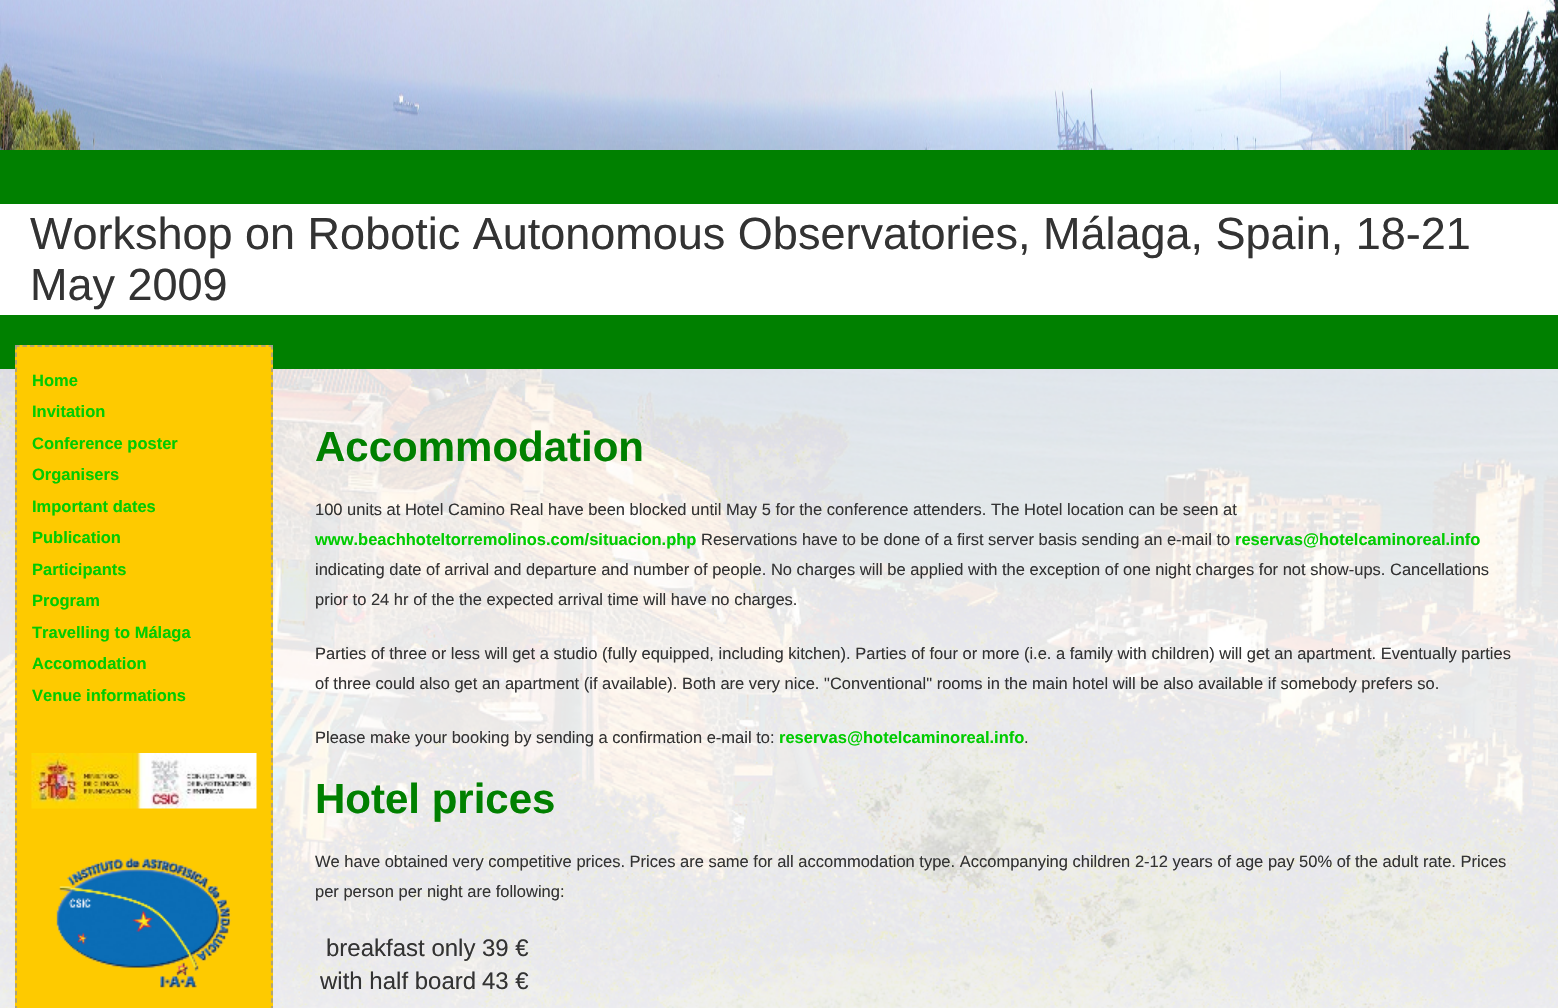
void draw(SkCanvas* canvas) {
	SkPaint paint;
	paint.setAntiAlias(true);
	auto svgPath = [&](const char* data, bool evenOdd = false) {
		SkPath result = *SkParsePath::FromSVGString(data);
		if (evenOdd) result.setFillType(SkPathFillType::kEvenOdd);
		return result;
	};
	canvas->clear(0xffffffff);
	canvas->drawImageRect(SkImages::DeferredFromEncodedData(SkData::MakeFromFileName("img1.png")), SkRect::MakeXYWH(0, 0, 1558, 150), SkSamplingOptions());
	paint.setColor(0xff008000);
	canvas->drawRect(SkRect::MakeXYWH(0, 150, 1558, 54), paint);
	canvas->drawRect(SkRect::MakeXYWH(0, 315, 1558, 54), paint);
	SkFont f1(fontMgr->matchFamilyStyle("Liberation Sans", SkFontStyle::Normal()), 45);
	f1.setSubpixel(true);
	paint.setColor(0xff333333);
	canvas->drawString("Workshop on Robotic Autonomous Observatories, Málaga, Spain, 18-21", 30, 249, f1, paint);
	canvas->drawString("May 2009", 30, 300, f1, paint);
	canvas->drawImageRect(SkImages::DeferredFromEncodedData(SkData::MakeFromFileName("img2.png")), SkRect::MakeXYWH(0, 369, 1558, 639), SkSamplingOptions());
	paint.setColor(0xfffeca00);
	canvas->drawRect(SkRect::MakeXYWH(15, 345, 258, 663), paint);
	paint.setStroke(true);
	paint.setStrokeWidth(1.5);
	paint.setColor(0xff999999);
	paint.setPathEffect(SkDashPathEffect::Make({{4.5f, 2.96f}}, 0));
	canvas->drawPath(svgPath("M15 346H273"), paint);
	paint.setPathEffect(nullptr);
	paint.setPathEffect(SkDashPathEffect::Make({{4.5f, 3.01f}}, 0));
	canvas->drawPath(svgPath("M272 345V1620"), paint);
	paint.setPathEffect(nullptr);
	paint.setPathEffect(SkDashPathEffect::Make({{4.5f, 3.01f}}, 0));
	canvas->drawPath(svgPath("M16 345V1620"), paint);
	paint.setPathEffect(nullptr);
	SkFont f2(fontMgr->matchFamilyStyle("Liberation Sans", SkFontStyle::Bold()), 16.5);
	f2.setSubpixel(true);
	paint.setStroke(false);
	paint.setColor(0xff00cc00);
	canvas->drawString("Home", 32, 386, f2, paint);
	canvas->drawString("Invitation", 32, 417, f2, paint);
	canvas->drawString("Conference poster", 32, 449, f2, paint);
	canvas->drawString("Organisers", 32, 480, f2, paint);
	canvas->drawString("Important dates", 32, 512, f2, paint);
	canvas->drawString("Publication", 32, 543, f2, paint);
	canvas->drawString("Participants", 32, 575, f2, paint);
	canvas->drawString("Program", 32, 606, f2, paint);
	canvas->drawString("Travelling to Málaga", 32, 638, f2, paint);
	canvas->drawString("Accomodation", 32, 669, f2, paint);
	canvas->drawString("Venue informations", 32, 701, f2, paint);
	canvas->drawImageRect(SkImages::DeferredFromEncodedData(SkData::MakeFromFileName("img3.png")), SkRect::MakeXYWH(31, 753, 226, 56), SkSamplingOptions());
	canvas->drawImageRect(SkImages::DeferredFromEncodedData(SkData::MakeFromFileName("img4.png")), SkRect::MakeXYWH(56, 857, 176, 131), SkSamplingOptions());
	SkFont f3(fontMgr->matchFamilyStyle("Liberation Sans", SkFontStyle::Bold()), 42);
	f3.setSubpixel(true);
	paint.setColor(0xff008000);
	canvas->drawString("Accommodation", 315, 461, f3, paint);
	SkFont f4(fontMgr->matchFamilyStyle("Liberation Sans", SkFontStyle::Normal()), 16.5);
	f4.setSubpixel(true);
	paint.setColor(0xff333333);
	canvas->drawString("100 units at Hotel Camino Real have been blocked until May 5 for the conference attenders. The Hotel location can be seen at", 315, 515, f4, paint);
	paint.setColor(0xff00cc00);
	canvas->drawString("www.beachhoteltorremolinos.com/situacion.php", 315, 545, f2, paint);
	paint.setColor(0xff333333);
	canvas->drawString("Reservations have to be done of a first server basis sending an e-mail to", 701, 545, f4, paint);
	paint.setColor(0xff00cc00);
	canvas->drawString("reservas@hotelcaminoreal.info", 1235, 545, f2, paint);
	paint.setColor(0xff333333);
	canvas->drawString("indicating date of arrival and departure and number of people. No charges will be applied with the exception of one night charges for not show-ups. Cancellations", 315, 575, f4, paint);
	canvas->drawString("prior to 24 hr of the the expected arrival time will have no charges.", 315, 605, f4, paint);
	canvas->drawString("Parties of three or less will get a studio (fully equipped, including kitchen). Parties of four or more (i.e. a family with children) will get an apartment. Eventually parties", 315, 659, f4, paint);
	canvas->drawString("of three could also get an apartment (if available). Both are very nice. \"Conventional\" rooms in the main hotel will be also available if somebody prefers so.", 315, 689, f4, paint);
	canvas->drawString("Please make your booking by sending a confirmation e-mail to:", 315, 743, f4, paint);
	paint.setColor(0xff00cc00);
	canvas->drawString("reservas@hotelcaminoreal.info", 779, 743, f2, paint);
	paint.setColor(0xff333333);
	canvas->drawString(".", 1024, 743, f4, paint);
	paint.setColor(0xff008000);
	canvas->drawString("Hotel prices", 315, 813, f3, paint);
	paint.setColor(0xff333333);
	canvas->drawString("We have obtained very competitive prices. Prices are same for all accommodation type. Accompanying children 2-12 years of age pay 50% of the adult rate. Prices", 315, 867, f4, paint);
	canvas->drawString("per person per night are following:", 315, 897, f4, paint);
	SkFont f5(fontMgr->matchFamilyStyle("Liberation Sans", SkFontStyle::Normal()), 24);
	f5.setSubpixel(true);
	canvas->drawString("breakfast only", 326, 956, f5, paint);
	canvas->drawString("39 €", 482, 956, f5, paint);
	canvas->drawString("with half board", 320, 989, f5, paint);
	canvas->drawString("43 €", 482, 989, f5, paint);
}
